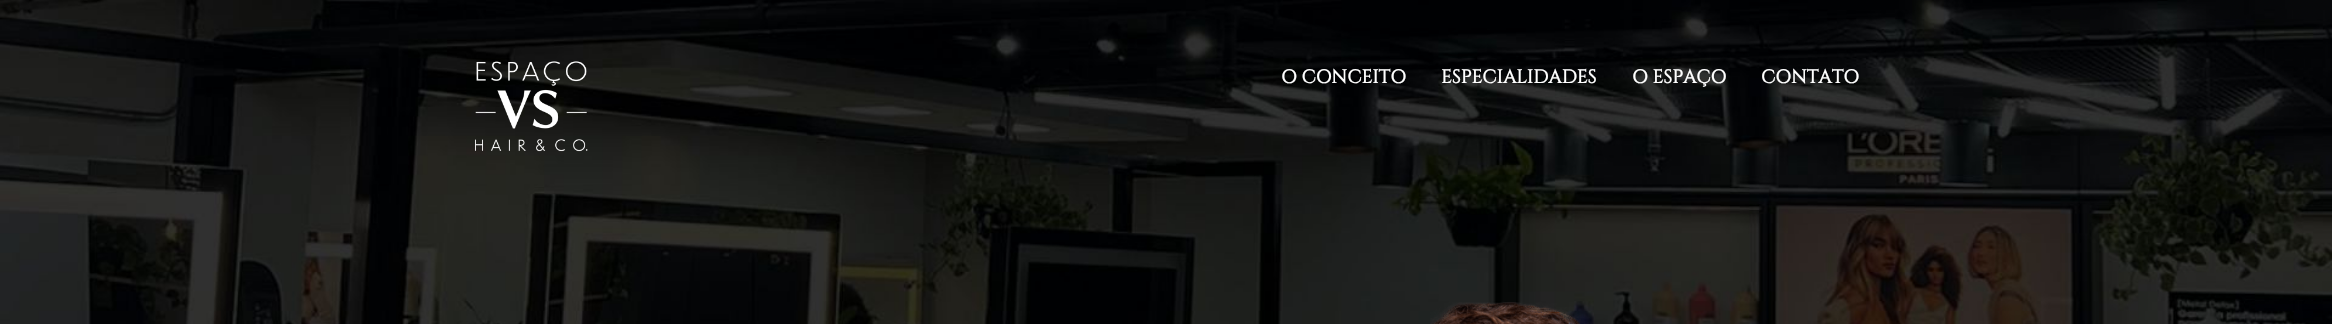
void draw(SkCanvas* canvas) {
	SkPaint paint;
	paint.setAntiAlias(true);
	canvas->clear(0xffffffff);
	canvas->drawImageRect(SkImages::DeferredFromEncodedData(SkData::MakeFromFileName("img1.png")), SkRect::MakeXYWH(0, 0, 2332, 324), SkSamplingOptions());
	canvas->drawImageRect(SkImages::DeferredFromEncodedData(SkData::MakeFromFileName("img2.png")), SkRect::MakeXYWH(475, 61, 113, 91), SkSamplingOptions());
	SkFont f1(fontMgr->matchFamilyStyle("Cinzel", SkFontStyle::Bold()), 18.75);
	f1.setSubpixel(true);
	paint.setColor(0xffffffff);
	canvas->drawString("O CONCEITO", 1281, 83, f1, paint);
	canvas->drawString("ESPECIALIDADES", 1441, 83, f1, paint);
	canvas->drawString("O ESPAÇO", 1632, 83, f1, paint);
	canvas->drawString("CONTATO", 1761, 83, f1, paint);
	canvas->drawImageRect(SkImages::DeferredFromEncodedData(SkData::MakeFromFileName("img3.png")), SkRect::MakeXYWH(1430, 302, 162, 22), SkSamplingOptions());
}
